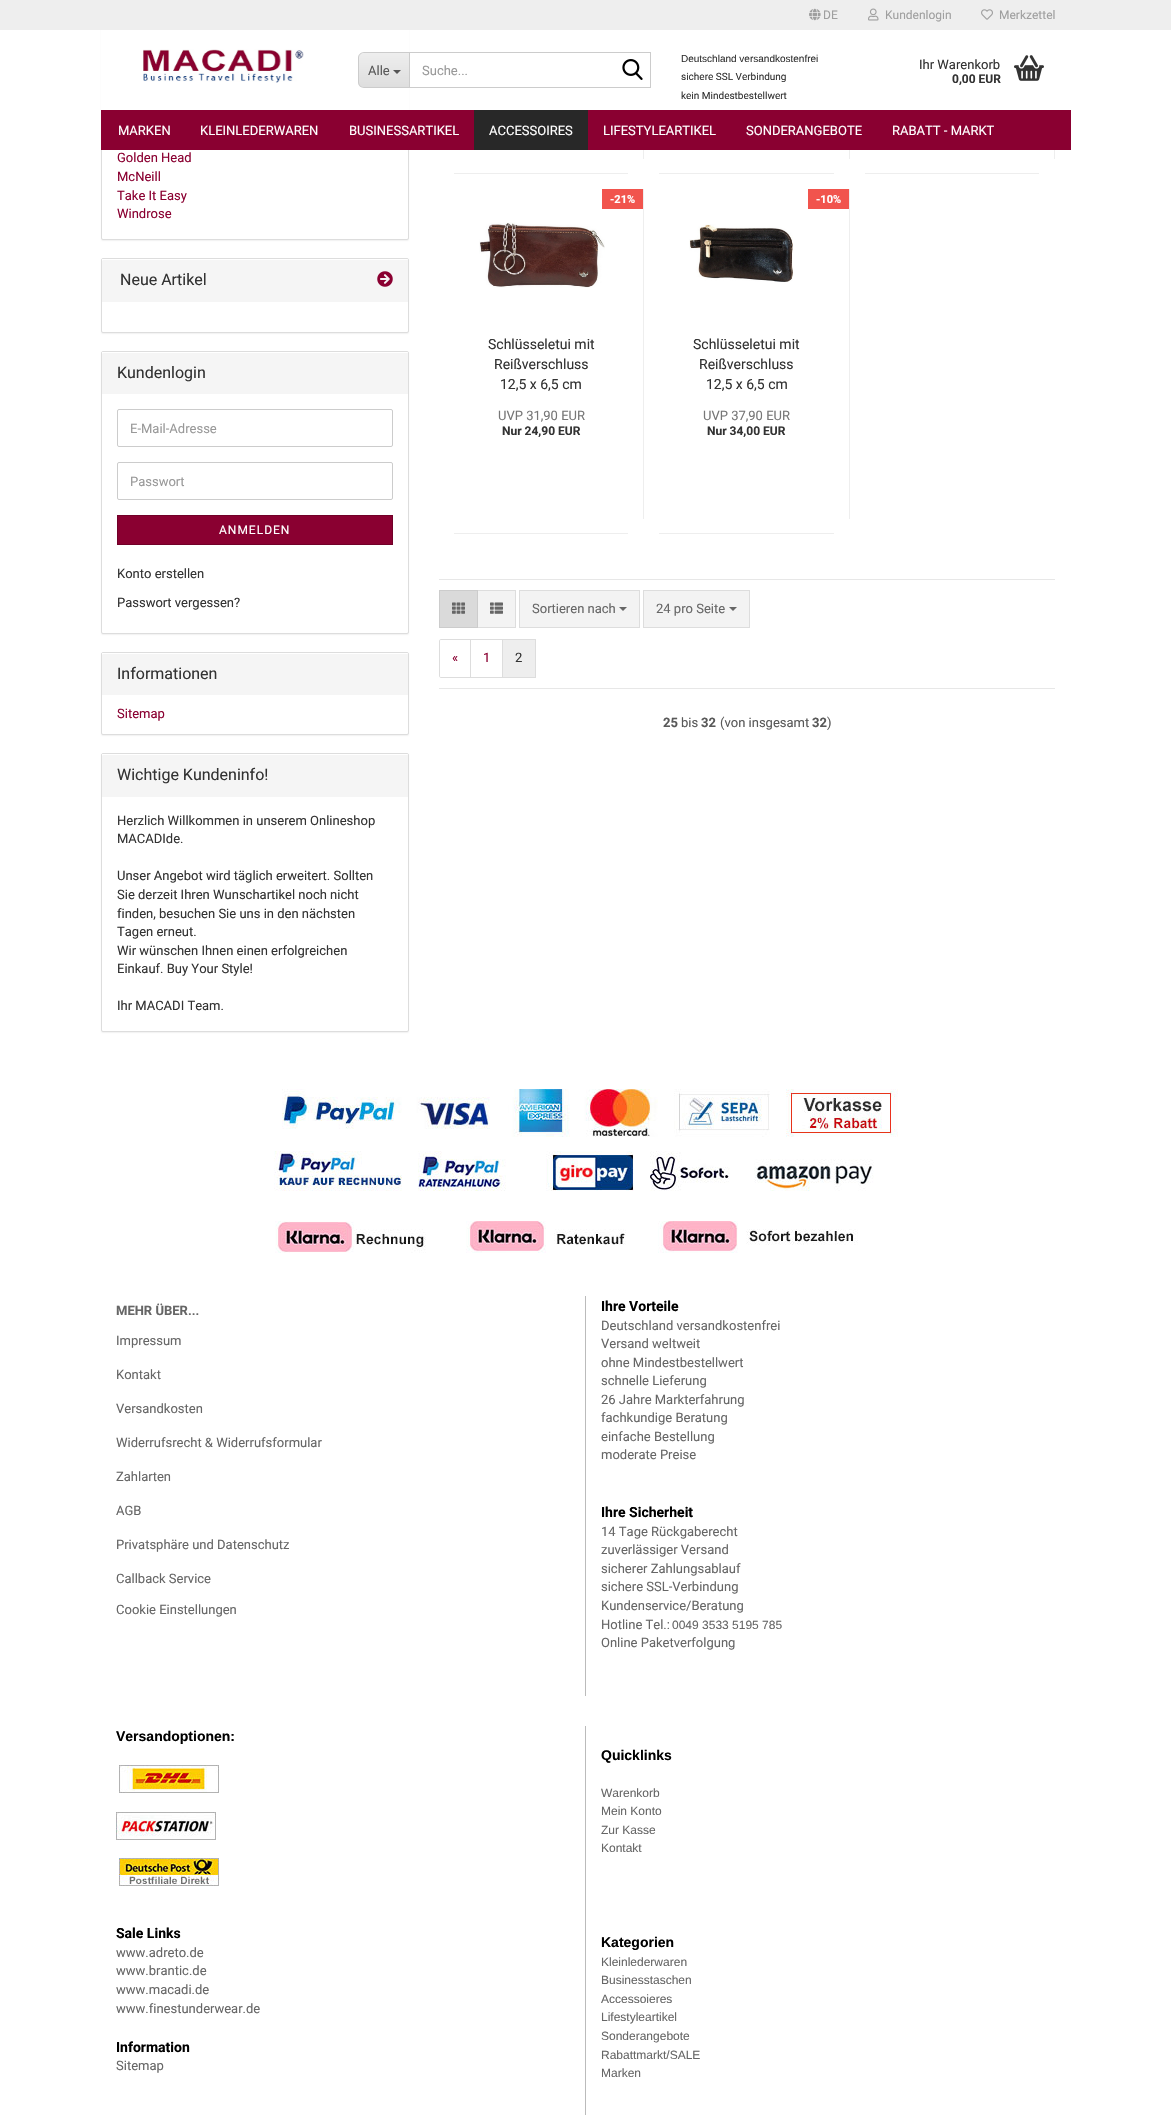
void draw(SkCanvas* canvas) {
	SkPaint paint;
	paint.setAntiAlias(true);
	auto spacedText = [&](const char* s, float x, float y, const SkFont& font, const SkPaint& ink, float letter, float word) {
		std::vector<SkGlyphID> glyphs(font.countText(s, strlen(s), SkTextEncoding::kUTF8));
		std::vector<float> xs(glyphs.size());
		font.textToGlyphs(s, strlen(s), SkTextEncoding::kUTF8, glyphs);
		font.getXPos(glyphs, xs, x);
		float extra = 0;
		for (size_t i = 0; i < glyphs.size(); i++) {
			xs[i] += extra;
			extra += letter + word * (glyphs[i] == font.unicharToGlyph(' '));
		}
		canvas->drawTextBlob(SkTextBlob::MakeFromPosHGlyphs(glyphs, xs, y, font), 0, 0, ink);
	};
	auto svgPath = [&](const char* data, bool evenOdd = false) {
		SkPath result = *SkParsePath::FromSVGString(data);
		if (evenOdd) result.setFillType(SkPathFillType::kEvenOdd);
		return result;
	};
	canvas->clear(0xffffffff);
	paint.setColor(0x0d000000);
	paint.setMaskFilter(SkMaskFilter::MakeBlur(kNormal_SkBlurStyle, 0.5));
	canvas->drawRoundRect(SkRect::MakeXYWH(101, 17, 308, 224), 2, 2, paint);
	paint.setMaskFilter(nullptr);
	paint.setColor(0xffffffff);
	canvas->drawRoundRect(SkRect::MakeXYWH(101.5, 16.5, 307, 223), 1.5, 1.5, paint);
	paint.setStroke(true);
	paint.setStrokeWidth(1);
	paint.setColor(0xffdddddd);
	canvas->drawRoundRect(SkRect::MakeXYWH(101.5, 16.5, 307, 223), 1.5, 1.5, paint);
	paint.setStroke(false);
	paint.setColor(0xffffffff);
	canvas->drawRect(SkRect::MakeXYWH(101, 30, 308, 120), paint);
	paint.setColor(0xffeeeeee);
	canvas->drawRect(SkRect::MakeXYWH(0, 0, 1171, 30), paint);
	canvas->drawImageRect(SkImages::DeferredFromEncodedData(SkData::MakeFromFileName("img1.png")), SkRect::MakeXYWH(809, 8, 12, 13), SkSamplingOptions());
	SkFont f1(fontMgr->matchFamilyStyle("Roboto", SkFontStyle::Normal()), 12);
	f1.setSubpixel(true);
	paint.setColor(0xff9f9f9f);
	canvas->drawString("DE", 823, 19, f1, paint);
	canvas->drawImageRect(SkImages::DeferredFromEncodedData(SkData::MakeFromFileName("img2.png")), SkRect::MakeXYWH(868, 8, 11, 13), SkSamplingOptions());
	canvas->drawString("Kundenlogin", 885, 19, f1, paint);
	canvas->drawImageRect(SkImages::DeferredFromEncodedData(SkData::MakeFromFileName("img3.png")), SkRect::MakeXYWH(981, 9, 12, 11), SkSamplingOptions());
	canvas->drawString("Merkzettel", 999, 19, f1, paint);
	canvas->drawImageRect(SkImages::DeferredFromEncodedData(SkData::MakeFromFileName("img4.png")), SkRect::MakeXYWH(143, 49, 161, 34), SkSamplingOptions());
	canvas->save();
	canvas->clipPath(svgPath("M364 52H409V88H364C360.5 88 358 85.5 358 82V58C358 54.5 360.5 52 364 52Z"), true);
	{
		const SkColor colors[] = {0xffeeeeee, 0xffdedede};
		const float stops[] = {0, 1};
		const SkPoint ends[] = {{384, 53}, {384, 87}};
		paint.setShader(SkGradientShader::MakeLinear(ends, colors, stops, 2, SkTileMode::kClamp));
		paint.setAlpha(255);
	}
	canvas->drawRect(SkRect::MakeXYWH(358, 53, 51, 34), paint);
	canvas->restore();
	paint.setShader(nullptr);
	paint.setColor(0xffcccccc);
	canvas->drawPath(svgPath("M364 52H409V88H364C361 88 358 85 358 82V58C358 55 361 52 364 52ZM364 53H409V87H364C361 87 359 85 359 82V58C359 55 361 53 364 53Z", true), paint);
	SkFont f2(fontMgr->matchFamilyStyle("Roboto", SkFontStyle::Normal()), 13);
	f2.setSubpixel(true);
	paint.setColor(0xff595959);
	canvas->drawString("Alle", 368, 75, f2, paint);
	paint.setColor(0xff555555);
	canvas->drawPath(svgPath("M393 70H401L397 74Z"), paint);
	paint.setStroke(true);
	paint.setColor(0xffcccccc);
	canvas->drawRect(SkRect::MakeXYWH(409.5, 52.5, 241, 35), paint);
	paint.setStroke(false);
	paint.setColor(0xff999999);
	canvas->drawString("Suche...", 422, 75, f2, paint);
	canvas->drawImageRect(SkImages::DeferredFromEncodedData(SkData::MakeFromFileName("img5.png")), SkRect::MakeXYWH(622, 59, 21, 21), SkSamplingOptions());
	SkFont f3(fontMgr->matchFamilyStyle("Liberation Sans", SkFontStyle::Normal()), 10);
	f3.setSubpixel(true);
	paint.setColor(0xff333333);
	canvas->drawString("Deutschland versandkostenfrei", 681, 62, f3, paint);
	SkFont f4(fontMgr->matchFamilyStyle("Roboto", SkFontStyle::Normal()), 10);
	f4.setSubpixel(true);
	canvas->drawString("sichere SSL Verbindung", 681, 80, f4, paint);
	canvas->drawString("kein Mindestbestellwert", 681, 99, f4, paint);
	canvas->drawString("Ihr Warenkorb", 919, 69, f2, paint);
	SkFont f5(fontMgr->matchFamilyStyle("Roboto", SkFontStyle::Bold()), 12);
	f5.setSubpixel(true);
	canvas->drawString("0,00 EUR", 952, 83, f5, paint);
	canvas->drawImageRect(SkImages::DeferredFromEncodedData(SkData::MakeFromFileName("img6.png")), SkRect::MakeXYWH(1014, 55, 30, 26), SkSamplingOptions());
	paint.setColor(0xff8a0031);
	canvas->drawRect(SkRect::MakeXYWH(101, 110, 970, 40), paint);
	paint.setColor(0xffffffff);
	canvas->drawString("MARKEN", 118, 135, f2, paint);
	canvas->drawString("KLEINLEDERWAREN", 200, 135, f2, paint);
	canvas->drawString("BUSINESSARTIKEL", 349, 135, f2, paint);
	paint.setColor(0xff282828);
	canvas->drawRect(SkRect::MakeXYWH(474, 110, 114, 40), paint);
	paint.setColor(0xffffffff);
	canvas->drawString("ACCESSOIRES", 489, 135, f2, paint);
	canvas->drawString("LIFESTYLEARTIKEL", 603, 135, f2, paint);
	canvas->drawString("SONDERANGEBOTE", 746, 135, f2, paint);
	canvas->drawString("RABATT - MARKT", 892, 135, f2, paint);
	paint.setColor(0xff8a0031);
	canvas->drawString("Golden Head", 117, 162, f2, paint);
	canvas->drawString("McNeill", 117, 181, f2, paint);
	canvas->drawString("Take It Easy", 117, 200, f2, paint);
	canvas->drawString("Windrose", 117, 218, f2, paint);
	paint.setColor(0x0d000000);
	paint.setMaskFilter(SkMaskFilter::MakeBlur(kNormal_SkBlurStyle, 0.5));
	canvas->drawRoundRect(SkRect::MakeXYWH(101, 259, 308, 75), 2, 2, paint);
	paint.setMaskFilter(nullptr);
	paint.setColor(0xffffffff);
	canvas->drawRoundRect(SkRect::MakeXYWH(101.5, 258.5, 307, 74), 1.5, 1.5, paint);
	paint.setStroke(true);
	paint.setColor(0xffdddddd);
	canvas->drawRoundRect(SkRect::MakeXYWH(101.5, 258.5, 307, 74), 1.5, 1.5, paint);
	paint.setStroke(false);
	paint.setColor(0xfff5f5f5);
	canvas->drawPath(svgPath("M103 259H407C407.5 259 408 259.5 408 260V302H102V260C102 259.5 102.5 259 103 259Z"), paint);
	paint.setColor(0xffffffff);
	canvas->drawPath(svgPath("M103 260H407C408 260 408 260 408 261C408 260 408 259 407 259H103H102V261Z"), paint);
	SkFont f6(fontMgr->matchFamilyStyle("Roboto", SkFontStyle::Normal()), 16);
	f6.setSubpixel(true);
	paint.setColor(0xff333333);
	canvas->drawString("Neue Artikel", 120, 285, f6, paint);
	canvas->drawImageRect(SkImages::DeferredFromEncodedData(SkData::MakeFromFileName("img7.png")), SkRect::MakeXYWH(377, 271, 16, 16), SkSamplingOptions());
	paint.setColor(0x0d000000);
	paint.setMaskFilter(SkMaskFilter::MakeBlur(kNormal_SkBlurStyle, 0.5));
	canvas->drawRoundRect(SkRect::MakeXYWH(101, 352, 308, 283), 2, 2, paint);
	paint.setMaskFilter(nullptr);
	paint.setColor(0xffffffff);
	canvas->drawRoundRect(SkRect::MakeXYWH(101.5, 351.5, 307, 282), 1.5, 1.5, paint);
	paint.setStroke(true);
	paint.setColor(0xffdddddd);
	canvas->drawRoundRect(SkRect::MakeXYWH(101.5, 351.5, 307, 282), 1.5, 1.5, paint);
	paint.setStroke(false);
	paint.setColor(0xfff5f5f5);
	canvas->drawPath(svgPath("M103 352H407C407.5 352 408 352.5 408 353V394H102V353C102 352.5 102.5 352 103 352Z"), paint);
	paint.setColor(0xffffffff);
	canvas->drawPath(svgPath("M103 353H407C408 353 408 353 408 354C408 353 408 352 407 352H103H102V354Z"), paint);
	paint.setColor(0xff333333);
	canvas->drawString("Kundenlogin", 117, 378, f6, paint);
	paint.setStroke(true);
	paint.setColor(0xffcccccc);
	canvas->drawRoundRect(SkRect::MakeXYWH(117.5, 409.5, 275, 37), 1.5, 1.5, paint);
	paint.setStroke(false);
	paint.setColor(0xff999999);
	canvas->drawString("E-Mail-Adresse", 130, 433, f2, paint);
	paint.setStroke(true);
	paint.setColor(0xffcccccc);
	canvas->drawRoundRect(SkRect::MakeXYWH(117.5, 462.5, 275, 37), 1.5, 1.5, paint);
	paint.setStroke(false);
	paint.setColor(0xff999999);
	canvas->drawString("Passwort", 130, 486, f2, paint);
	paint.setColor(0xff8a0031);
	canvas->drawRect(SkRect::MakeXYWH(117.5, 515.5, 275, 29), paint);
	paint.setStroke(true);
	paint.setColor(0xff710028);
	canvas->drawRect(SkRect::MakeXYWH(117.5, 515.5, 275, 29), paint);
	paint.setStroke(false);
	paint.setColor(0xffffffff);
	spacedText("ANMELDEN", 219, 534, f1, paint, 1, 0);
	paint.setColor(0xff333333);
	canvas->drawString("Konto erstellen", 117, 578, f2, paint);
	canvas->drawString("Passwort vergessen?", 117, 607, f2, paint);
	paint.setColor(0x0d000000);
	paint.setMaskFilter(SkMaskFilter::MakeBlur(kNormal_SkBlurStyle, 0.5));
	canvas->drawRoundRect(SkRect::MakeXYWH(101, 653, 308, 83), 2, 2, paint);
	paint.setMaskFilter(nullptr);
	paint.setColor(0xffffffff);
	canvas->drawRoundRect(SkRect::MakeXYWH(101.5, 652.5, 307, 82), 1.5, 1.5, paint);
	paint.setStroke(true);
	paint.setColor(0xffdddddd);
	canvas->drawRoundRect(SkRect::MakeXYWH(101.5, 652.5, 307, 82), 1.5, 1.5, paint);
	paint.setStroke(false);
	paint.setColor(0xfff5f5f5);
	canvas->drawPath(svgPath("M103 653H407C407.5 653 408 653.5 408 654V695H102V654C102 653.5 102.5 653 103 653Z"), paint);
	paint.setColor(0xffffffff);
	canvas->drawPath(svgPath("M103 654H407C408 654 408 654 408 655C408 654 408 653 407 653H103H102V655Z"), paint);
	paint.setColor(0xff333333);
	canvas->drawString("Informationen", 117, 679, f6, paint);
	paint.setColor(0xff8a0031);
	canvas->drawString("Sitemap", 117, 718, f2, paint);
	paint.setColor(0x0d000000);
	paint.setMaskFilter(SkMaskFilter::MakeBlur(kNormal_SkBlurStyle, 0.5));
	canvas->drawRoundRect(SkRect::MakeXYWH(101, 754, 308, 279), 2, 2, paint);
	paint.setMaskFilter(nullptr);
	paint.setColor(0xffffffff);
	canvas->drawRoundRect(SkRect::MakeXYWH(101.5, 753.5, 307, 278), 1.5, 1.5, paint);
	paint.setStroke(true);
	paint.setColor(0xffdddddd);
	canvas->drawRoundRect(SkRect::MakeXYWH(101.5, 753.5, 307, 278), 1.5, 1.5, paint);
	paint.setStroke(false);
	paint.setColor(0xfff5f5f5);
	canvas->drawPath(svgPath("M103 754H407C407.5 754 408 754.5 408 755V797H102V755C102 754.5 102.5 754 103 754Z"), paint);
	paint.setColor(0xffffffff);
	canvas->drawPath(svgPath("M103 755H407C408 755 408 755 408 756C408 755 408 754 407 754H103H102V756Z"), paint);
	paint.setColor(0xff333333);
	canvas->drawString("Wichtige Kundeninfo!", 117, 780, f6, paint);
	canvas->drawString("Herzlich Willkommen in unserem Onlineshop", 117, 825, f2, paint);
	canvas->drawString("MACADIde.", 117, 843, f2, paint);
	canvas->drawString("Unser Angebot wird täglich erweitert. Sollten", 117, 880, f2, paint);
	canvas->drawString("Sie derzeit Ihren Wunschartikel noch nicht", 117, 899, f2, paint);
	canvas->drawString("finden, besuchen Sie uns in den nächsten", 117, 918, f2, paint);
	canvas->drawString("Tagen erneut.", 117, 936, f2, paint);
	canvas->drawString("Wir wünschen Ihnen einen erfolgreichen", 117, 955, f2, paint);
	canvas->drawString("Einkauf. Buy Your Style!", 117, 973, f2, paint);
	canvas->drawString("Ihr MACADI Team.", 117, 1010, f2, paint);
	paint.setColor(0xffeeeeee);
	canvas->drawRect(SkRect::MakeXYWH(643, 150, 1, 9), paint);
	canvas->drawRect(SkRect::MakeXYWH(454, 173, 174, 1), paint);
	canvas->drawRect(SkRect::MakeXYWH(849, 150, 1, 9), paint);
	canvas->drawRect(SkRect::MakeXYWH(659, 173, 175, 1), paint);
	canvas->drawRect(SkRect::MakeXYWH(1054, 150, 1, 9), paint);
	canvas->drawRect(SkRect::MakeXYWH(865, 173, 174, 1), paint);
	canvas->drawRect(SkRect::MakeXYWH(643, 189, 1, 330), paint);
	canvas->drawRect(SkRect::MakeXYWH(454, 533, 174, 1), paint);
	paint.setColor(0xfff1544d);
	canvas->drawRect(SkRect::MakeXYWH(602, 189, 41, 20), paint);
	SkFont f7(fontMgr->matchFamilyStyle("Roboto", SkFontStyle::Bold()), 11);
	f7.setSubpixel(true);
	paint.setColor(0xffffffff);
	canvas->drawString("-21%", 610, 203, f7, paint);
	canvas->drawImageRect(SkImages::DeferredFromEncodedData(SkData::MakeFromFileName("img8.png")), SkRect::MakeXYWH(479, 222, 126, 66), SkSamplingOptions());
	SkFont f8(fontMgr->matchFamilyStyle("Roboto", SkFontStyle::Normal()), 14);
	f8.setSubpixel(true);
	paint.setColor(0xff333333);
	canvas->drawString("Schlüsseletui mit", 488, 349, f8, paint);
	canvas->drawString("Reißverschluss", 494, 369, f8, paint);
	canvas->drawString("12,5 x 6,5 cm", 500, 389, f8, paint);
	paint.setColor(0xff777777);
	canvas->drawString("UVP 31,90 EUR", 498, 420, f2, paint);
	paint.setColor(0xff333333);
	canvas->drawString("Nur 24,90 EUR", 502, 435, f5, paint);
	paint.setColor(0xffeeeeee);
	canvas->drawRect(SkRect::MakeXYWH(849, 189, 1, 330), paint);
	canvas->drawRect(SkRect::MakeXYWH(659, 533, 175, 1), paint);
	paint.setColor(0xfff1544d);
	canvas->drawRect(SkRect::MakeXYWH(808, 189, 41, 20), paint);
	paint.setColor(0xffffffff);
	canvas->drawString("-10%", 816, 203, f7, paint);
	canvas->drawImageRect(SkImages::DeferredFromEncodedData(SkData::MakeFromFileName("img9.png")), SkRect::MakeXYWH(689, 224, 104, 58), SkSamplingOptions());
	paint.setColor(0xff333333);
	canvas->drawString("Schlüsseletui mit", 693, 349, f8, paint);
	canvas->drawString("Reißverschluss", 699, 369, f8, paint);
	canvas->drawString("12,5 x 6,5 cm", 706, 389, f8, paint);
	paint.setColor(0xff777777);
	canvas->drawString("UVP 37,90 EUR", 703, 420, f2, paint);
	paint.setColor(0xff333333);
	canvas->drawString("Nur 34,00 EUR", 707, 435, f5, paint);
	paint.setColor(0xffe7e7e7);
	canvas->drawRect(SkRect::MakeXYWH(439, 579, 616, 1), paint);
	canvas->drawRect(SkRect::MakeXYWH(439, 688, 616, 1), paint);
	paint.setColor(0xfff3f3f3);
	canvas->drawRect(SkRect::MakeXYWH(477.5, 590.5, 38, 37), paint);
	paint.setStroke(true);
	paint.setColor(0xffdddddd);
	canvas->drawRect(SkRect::MakeXYWH(477.5, 590.5, 38, 37), paint);
	paint.setStroke(false);
	paint.setColor(0xffdadada);
	canvas->drawRect(SkRect::MakeXYWH(439.5, 590.5, 38, 37), paint);
	paint.setStroke(true);
	paint.setColor(0xffcccccc);
	canvas->drawRect(SkRect::MakeXYWH(439.5, 590.5, 38, 37), paint);
	canvas->drawImageRect(SkImages::DeferredFromEncodedData(SkData::MakeFromFileName("img10.png")), SkRect::MakeXYWH(452, 602, 13, 12), SkSamplingOptions());
	canvas->drawImageRect(SkImages::DeferredFromEncodedData(SkData::MakeFromFileName("img11.png")), SkRect::MakeXYWH(490, 602, 13, 12), SkSamplingOptions());
	paint.setStroke(false);
	paint.setColor(0xfff3f3f3);
	canvas->drawRect(SkRect::MakeXYWH(519.5, 590.5, 120, 37), paint);
	paint.setStroke(true);
	paint.setColor(0xffdddddd);
	canvas->drawRect(SkRect::MakeXYWH(519.5, 590.5, 120, 37), paint);
	paint.setStroke(false);
	paint.setColor(0xff666666);
	canvas->drawString("Sortieren nach", 532, 613, f2, paint);
	canvas->drawPath(svgPath("M619 607H627L623 611Z"), paint);
	paint.setColor(0xfff3f3f3);
	canvas->drawRect(SkRect::MakeXYWH(643.5, 590.5, 106, 37), paint);
	paint.setStroke(true);
	paint.setColor(0xffdddddd);
	canvas->drawRect(SkRect::MakeXYWH(643.5, 590.5, 106, 37), paint);
	paint.setStroke(false);
	paint.setColor(0xff666666);
	canvas->drawString("24 pro Seite", 656, 613, f2, paint);
	canvas->drawPath(svgPath("M729 607H737L733 611Z"), paint);
	paint.setStroke(true);
	paint.setColor(0xffdddddd);
	canvas->drawPath(svgPath("M441 639.5H470.5V677.5H441C440 677.5 439.5 677 439.5 676V641C439.5 640 440 639.5 441 639.5Z"), paint);
	paint.setStroke(false);
	paint.setColor(0xff8a0031);
	canvas->drawString("«", 452, 662, f2, paint);
	paint.setStroke(true);
	paint.setColor(0xffdddddd);
	canvas->drawRect(SkRect::MakeXYWH(470.5, 639.5, 32, 38), paint);
	paint.setStroke(false);
	paint.setColor(0xff8a0031);
	canvas->drawString("1", 483, 662, f2, paint);
	paint.setColor(0xffeeeeee);
	canvas->drawRect(SkRect::MakeXYWH(502.5, 639.5, 33, 38), paint);
	paint.setStroke(true);
	paint.setColor(0xffdddddd);
	canvas->drawRect(SkRect::MakeXYWH(502.5, 639.5, 33, 38), paint);
	paint.setStroke(false);
	paint.setColor(0xff333333);
	canvas->drawString("2", 515, 662, f2, paint);
	SkFont f9(fontMgr->matchFamilyStyle("Roboto", SkFontStyle::Bold()), 13);
	f9.setSubpixel(true);
	paint.setColor(0xff595959);
	canvas->drawString("25", 663, 727, f9, paint);
	canvas->drawString("bis", 681, 727, f2, paint);
	canvas->drawString("32", 701, 727, f9, paint);
	canvas->drawString("(von insgesamt", 720, 727, f2, paint);
	canvas->drawString("32", 812, 727, f9, paint);
	canvas->drawString(")", 827, 727, f2, paint);
	canvas->drawImageRect(SkImages::DeferredFromEncodedData(SkData::MakeFromFileName("img12.png")), SkRect::MakeXYWH(282, 1089, 616, 48), SkSamplingOptions());
	canvas->drawImageRect(SkImages::DeferredFromEncodedData(SkData::MakeFromFileName("img13.png")), SkRect::MakeXYWH(274, 1151, 600, 40), SkSamplingOptions());
	canvas->drawImageRect(SkImages::DeferredFromEncodedData(SkData::MakeFromFileName("img14.png")), SkRect::MakeXYWH(275, 1221, 583, 32), SkSamplingOptions());
	paint.setColor(0xffbbbbbb);
	canvas->drawRect(SkRect::MakeXYWH(585, 1296, 1, 400), paint);
	paint.setColor(0xff666666);
	canvas->drawString("MEHR ÜBER...", 116, 1315, f9, paint);
	canvas->drawString("Impressum", 116, 1345, f2, paint);
	canvas->drawString("Kontakt", 116, 1379, f2, paint);
	canvas->drawString("Versandkosten", 116, 1413, f2, paint);
	canvas->drawString("Widerrufsrecht & Widerrufsformular", 116, 1447, f2, paint);
	canvas->drawString("Zahlarten", 116, 1481, f2, paint);
	canvas->drawString("AGB", 116, 1515, f2, paint);
	canvas->drawString("Privatsphäre und Datenschutz", 116, 1549, f2, paint);
	canvas->drawString("Callback Service", 116, 1583, f2, paint);
	canvas->drawString("Cookie Einstellungen", 116, 1614, f2, paint);
	SkFont f10(fontMgr->matchFamilyStyle("Roboto", SkFontStyle::Bold()), 14);
	f10.setSubpixel(true);
	paint.setColor(0xff000000);
	canvas->drawString("Ihre Vorteile", 601, 1311, f10, paint);
	paint.setColor(0xff666666);
	canvas->drawString("Deutschland versandkostenfrei", 601, 1330, f2, paint);
	canvas->drawString("Versand weltweit", 601, 1348, f2, paint);
	canvas->drawString("ohne Mindestbestellwert", 601, 1367, f2, paint);
	canvas->drawString("schnelle Lieferung", 601, 1385, f2, paint);
	canvas->drawString("26 Jahre Markterfahrung", 601, 1404, f2, paint);
	canvas->drawString("fachkundige Beratung", 601, 1422, f2, paint);
	canvas->drawString("einfache Bestellung", 601, 1441, f2, paint);
	canvas->drawString("moderate Preise", 601, 1459, f2, paint);
	paint.setColor(0xff000000);
	canvas->drawString("Ihre Sicherheit", 601, 1517, f10, paint);
	paint.setColor(0xff666666);
	canvas->drawString("14 Tage Rückgaberecht", 601, 1536, f2, paint);
	canvas->drawString("zuverlässiger Versand", 601, 1554, f2, paint);
	canvas->drawString("sicherer Zahlungsablauf", 601, 1573, f2, paint);
	canvas->drawString("sichere SSL-Verbindung", 601, 1591, f2, paint);
	canvas->drawString("Kundenservice/Beratung", 601, 1610, f2, paint);
	canvas->drawString("Hotline Tel.:", 601, 1629, f2, paint);
	SkFont f11(fontMgr->matchFamilyStyle("Liberation Sans", SkFontStyle::Normal()), 12);
	f11.setSubpixel(true);
	canvas->drawString("0049 3533 5195 785", 672, 1629, f11, paint);
	canvas->drawString("Online Paketverfolgung", 601, 1647, f2, paint);
	paint.setColor(0xffbbbbbb);
	canvas->drawRect(SkRect::MakeXYWH(585, 1726, 1, 389), paint);
	SkFont f12(fontMgr->matchFamilyStyle("Liberation Sans", SkFontStyle::Bold()), 14);
	f12.setSubpixel(true);
	paint.setColor(0xff000000);
	canvas->drawString("Versandoptionen:", 116, 1741, f12, paint);
	canvas->drawImageRect(SkImages::DeferredFromEncodedData(SkData::MakeFromFileName("img15.png")), SkRect::MakeXYWH(119, 1765, 100, 28), SkSamplingOptions());
	canvas->drawImageRect(SkImages::DeferredFromEncodedData(SkData::MakeFromFileName("img16.png")), SkRect::MakeXYWH(116, 1812, 100, 28), SkSamplingOptions());
	canvas->drawImageRect(SkImages::DeferredFromEncodedData(SkData::MakeFromFileName("img17.png")), SkRect::MakeXYWH(119, 1858, 100, 28), SkSamplingOptions());
	canvas->drawString("Sale Links", 116, 1938, f10, paint);
	paint.setColor(0xff666666);
	canvas->drawString("www.adreto.de", 116, 1957, f2, paint);
	canvas->drawString("www.brantic.de", 116, 1975, f2, paint);
	canvas->drawString("www.macadi.de", 116, 1994, f2, paint);
	canvas->drawString("www.finestunderwear.de", 116, 2013, f2, paint);
	paint.setColor(0xff000000);
	canvas->drawString("Information", 116, 2052, f10, paint);
	paint.setColor(0xff666666);
	canvas->drawString("Sitemap", 116, 2070, f2, paint);
	paint.setColor(0xff000000);
	canvas->drawString("Quicklinks", 601, 1760, f12, paint);
	paint.setColor(0xff666666);
	canvas->drawString("Warenkorb", 601, 1797, f11, paint);
	canvas->drawString("Mein Konto", 601, 1815, f11, paint);
	canvas->drawString("Zur Kasse", 601, 1834, f11, paint);
	canvas->drawString("Kontakt", 601, 1852, f11, paint);
	paint.setColor(0xff000000);
	canvas->drawString("Kategorien", 601, 1947, f12, paint);
	paint.setColor(0xff666666);
	canvas->drawString("Kleinlederwaren", 601, 1966, f11, paint);
	canvas->drawString("Businesstaschen", 601, 1984, f11, paint);
	canvas->drawString("Accessoieres", 601, 2003, f11, paint);
	canvas->drawString("Lifestyleartikel", 601, 2021, f11, paint);
	canvas->drawString("Sonderangebote", 601, 2040, f11, paint);
	canvas->drawString("Rabattmarkt/SALE", 601, 2059, f11, paint);
	canvas->drawString("Marken", 601, 2077, f11, paint);
}
